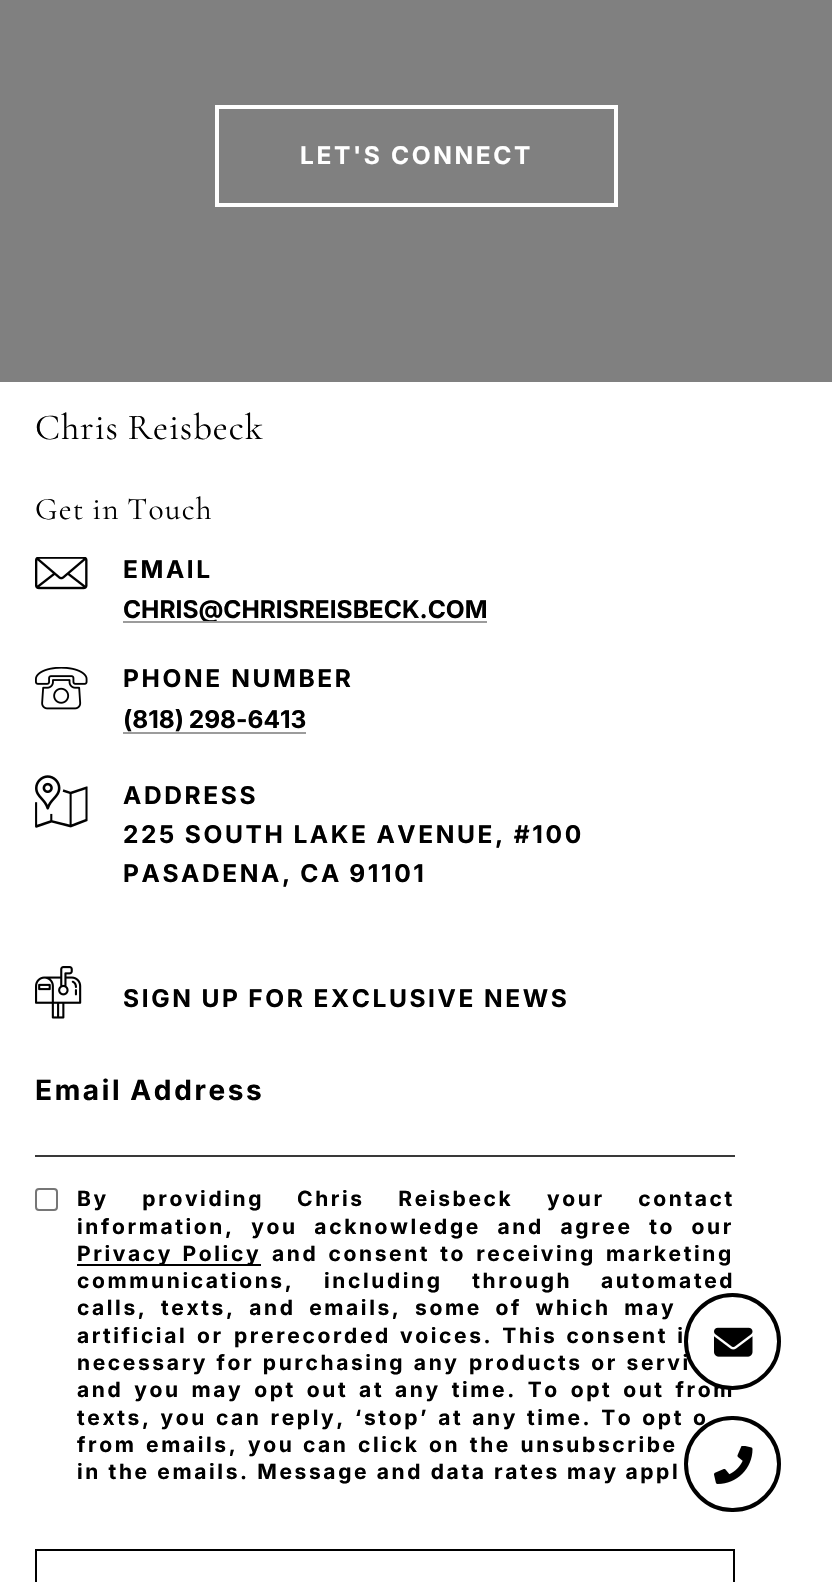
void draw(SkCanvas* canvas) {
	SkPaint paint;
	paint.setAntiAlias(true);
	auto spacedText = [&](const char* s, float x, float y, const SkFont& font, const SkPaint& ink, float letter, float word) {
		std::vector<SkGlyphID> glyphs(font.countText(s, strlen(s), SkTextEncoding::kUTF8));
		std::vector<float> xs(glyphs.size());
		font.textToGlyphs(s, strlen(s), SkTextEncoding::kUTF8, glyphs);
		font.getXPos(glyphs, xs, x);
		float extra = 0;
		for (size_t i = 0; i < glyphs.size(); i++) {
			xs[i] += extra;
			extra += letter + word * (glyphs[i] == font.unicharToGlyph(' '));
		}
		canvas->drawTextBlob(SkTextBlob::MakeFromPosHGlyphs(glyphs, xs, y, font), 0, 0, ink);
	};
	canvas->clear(0xffffffff);
	paint.setColor(0xff808080);
	canvas->drawRect(SkRect::MakeXYWH(0, 0, 832, 382), paint);
	paint.setStroke(true);
	paint.setStrokeWidth(4);
	paint.setColor(0xffffffff);
	canvas->drawRect(SkRect::MakeXYWH(217, 107, 399, 98), paint);
	SkFont f1(fontMgr->matchFamilyStyle("Inter", SkFontStyle::Bold()), 24.5);
	f1.setSubpixel(true);
	paint.setStroke(false);
	spacedText("LET'S CONNECT", 300, 164, f1, paint, 2.62, 0);
	SkFont f2(fontMgr->matchFamilyStyle("Cormorant Garamond", SkFontStyle::Normal()), 36.75);
	f2.setSubpixel(true);
	paint.setColor(0xff000000);
	spacedText("Chris Reisbeck", 35, 439, f2, paint, 0.9, -1);
	SkFont f3(fontMgr->matchFamilyStyle("Cormorant Garamond", SkFontStyle::Normal()), 31.5);
	f3.setSubpixel(true);
	spacedText("Get in Touch", 35, 519, f3, paint, 1.25, -1);
	canvas->drawImageRect(SkImages::DeferredFromEncodedData(SkData::MakeFromFileName("img1.png")), SkRect::MakeXYWH(35, 557, 53, 33), SkSamplingOptions());
	spacedText("EMAIL", 123, 578, f1, paint, 2.62, 0);
	canvas->drawString("CHRIS@CHRISREISBECK.COM", 123, 618, f1, paint);
	paint.setColor(0xff9c9c9c);
	canvas->drawRect(SkRect::MakeXYWH(123, 621, 364, 2), paint);
	canvas->drawImageRect(SkImages::DeferredFromEncodedData(SkData::MakeFromFileName("img2.png")), SkRect::MakeXYWH(35, 667, 53, 43), SkSamplingOptions());
	paint.setColor(0xff000000);
	spacedText("PHONE NUMBER", 123, 687, f1, paint, 2.62, 0);
	spacedText("(818) 298-6413", 123, 728, f1, paint, 0, -1);
	paint.setColor(0xff9c9c9c);
	canvas->drawRect(SkRect::MakeXYWH(123, 732, 183, 2), paint);
	canvas->drawImageRect(SkImages::DeferredFromEncodedData(SkData::MakeFromFileName("img3.png")), SkRect::MakeXYWH(35, 775, 53, 53), SkSamplingOptions());
	paint.setColor(0xff000000);
	spacedText("ADDRESS", 123, 804, f1, paint, 2.62, 0);
	spacedText("225 SOUTH LAKE AVENUE, #100", 123, 843, f1, paint, 2.62, -0.5);
	spacedText("PASADENA, CA 91101", 123, 882, f1, paint, 2.62, -1);
	canvas->drawImageRect(SkImages::DeferredFromEncodedData(SkData::MakeFromFileName("img4.png")), SkRect::MakeXYWH(35, 966, 47, 53), SkSamplingOptions());
	spacedText("SIGN UP FOR EXCLUSIVE NEWS", 123, 1007, f1, paint, 2.62, -0.5);
	SkFont f4(fontMgr->matchFamilyStyle("Inter", SkFontStyle::Bold()), 28);
	f4.setSubpixel(true);
	spacedText("Email Address", 35, 1100, f4, paint, 2.62, -1);
	paint.setColor(0xff393939);
	canvas->drawRect(SkRect::MakeXYWH(35, 1155, 700, 2), paint);
	paint.setStroke(true);
	paint.setStrokeWidth(2);
	paint.setColor(0xff767676);
	canvas->drawRoundRect(SkRect::MakeXYWH(36, 1189, 21, 21), 3, 3, paint);
	SkFont f5(fontMgr->matchFamilyStyle("Inter", SkFontStyle::Bold()), 21);
	f5.setSubpixel(true);
	paint.setStroke(false);
	paint.setColor(0xff000000);
	spacedText("By providing", 77, 1206, f5, paint, 2.62, 26);
	spacedText("Chris Reisbeck", 297, 1206, f5, paint, 2.62, 26);
	spacedText("your contact", 547, 1206, f5, paint, 2.62, 26);
	spacedText("information, you acknowledge and agree to our", 77, 1234, f5, paint, 2.62, 9);
	canvas->drawRect(SkRect::MakeXYWH(77, 1264, 184, 2), paint);
	spacedText("Privacy Policy", 77, 1261, f5, paint, 2.62, 2);
	spacedText("and consent to receiving marketing", 272, 1261, f5, paint, 2.62, 2.5);
	spacedText("communications, including through", 77, 1288, f5, paint, 2.62, 22);
	spacedText("automated", 601, 1288, f5, paint, 2.62, 0);
	spacedText("calls, texts, and emails, some of which may", 77, 1315, f5, paint, 2.62, 6);
	spacedText("artificial or", 77, 1343, f5, paint, 2.62, 2);
	spacedText("prerecorded voices. This consent i", 234, 1343, f5, paint, 2.62, 1.5);
	spacedText("necessary for purchasing any", 77, 1370, f5, paint, 2.62, 1);
	spacedText("products or servi", 469, 1370, f5, paint, 2.62, 1);
	spacedText("and you may opt out at any time. To opt out from", 77, 1397, f5, paint, 2.62, 3.25);
	spacedText("texts, you can reply, ‘stop’ at any time. To opt o", 77, 1425, f5, paint, 2.62, 1.4);
	spacedText("from emails, you", 77, 1452, f5, paint, 2.62, 2);
	spacedText("can click on the unsubscribe", 303, 1452, f5, paint, 2.62, 2);
	spacedText("in the emails. Message and data rates", 77, 1479, f5, paint, 2.62, 0);
	spacedText("may appl", 567, 1479, f5, paint, 2.62, -1);
	paint.setStroke(true);
	canvas->drawRect(SkRect::MakeXYWH(36, 1550, 698, 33), paint);
	paint.setStroke(false);
	paint.setColor(0xffffffff);
	canvas->drawCircle(732.5, 1341.5, 46.5, paint);
	paint.setStroke(true);
	paint.setStrokeWidth(4);
	paint.setColor(0xff000000);
	canvas->drawCircle(732.5, 1341.5, 46.5, paint);
	canvas->drawImageRect(SkImages::DeferredFromEncodedData(SkData::MakeFromFileName("img5.png")), SkRect::MakeXYWH(714, 1327, 39, 30), SkSamplingOptions());
	canvas->drawRoundRect(SkRect::MakeXYWH(686, 1418, 93, 92), 46, 46, paint);
	canvas->drawImageRect(SkImages::DeferredFromEncodedData(SkData::MakeFromFileName("img6.png")), SkRect::MakeXYWH(714, 1446, 39, 38), SkSamplingOptions());
}
